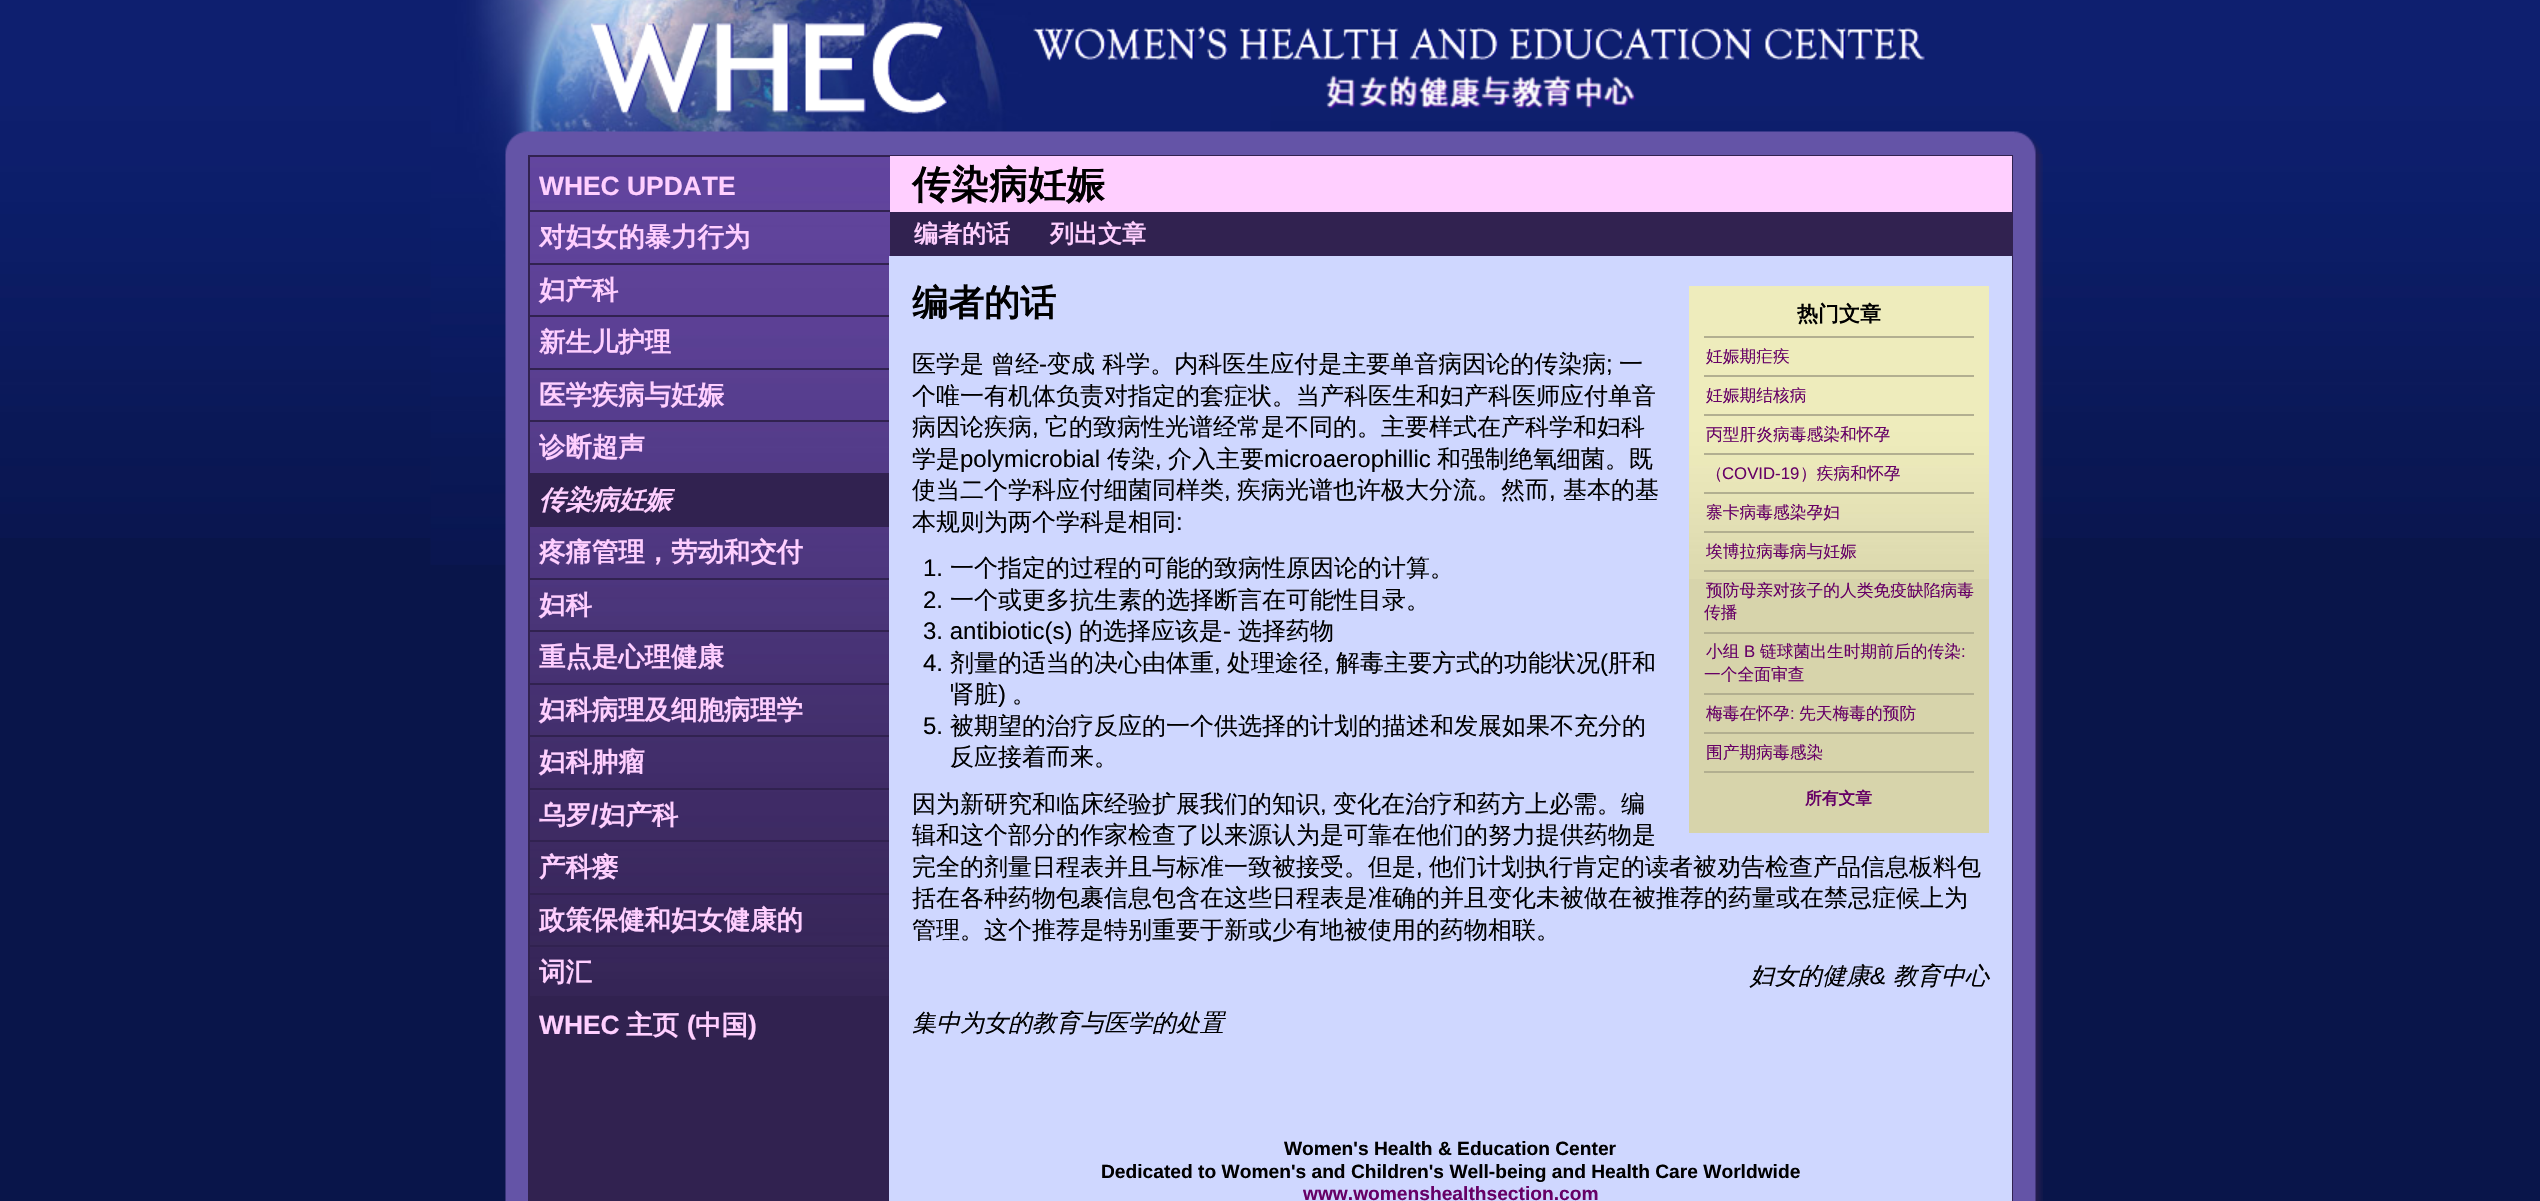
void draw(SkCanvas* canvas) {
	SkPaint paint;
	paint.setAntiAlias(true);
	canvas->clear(0xff09154a);
	canvas->drawImageRect(SkImages::DeferredFromEncodedData(SkData::MakeFromFileName("img1.png")), SkRect::MakeXYWH(0, 0, 2540, 538), SkSamplingOptions());
	canvas->drawImageRect(SkImages::DeferredFromEncodedData(SkData::MakeFromFileName("img2.png")), SkRect::MakeXYWH(430, 0, 841, 565), SkSamplingOptions());
	canvas->drawImageRect(SkImages::DeferredFromEncodedData(SkData::MakeFromFileName("img3.png")), SkRect::MakeXYWH(590, 21, 1336, 93), SkSamplingOptions());
	canvas->drawImageRect(SkImages::DeferredFromEncodedData(SkData::MakeFromFileName("img4.png")), SkRect::MakeXYWH(505, 131, 1537, 23), SkSamplingOptions());
	canvas->drawImageRect(SkImages::DeferredFromEncodedData(SkData::MakeFromFileName("img5.png")), SkRect::MakeXYWH(505, 154, 1538, 1047), SkSamplingOptions());
	paint.setColor(0xff312250);
	canvas->drawRect(SkRect::MakeXYWH(530, 996, 359, 205), paint);
	canvas->drawImageRect(SkImages::DeferredFromEncodedData(SkData::MakeFromFileName("img6.png")), SkRect::MakeXYWH(530, 157, 360, 839), SkSamplingOptions());
	paint.setStroke(true);
	paint.setStrokeWidth(2);
	canvas->drawRect(SkRect::MakeXYWH(529, 156, 1483, 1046), paint);
	paint.setStroke(false);
	canvas->drawRect(SkRect::MakeXYWH(530, 210, 360, 2), paint);
	SkFont f1(fontMgr->matchFamilyStyle("Liberation Sans", SkFontStyle::Bold()), 26.4);
	f1.setSubpixel(true);
	paint.setColor(0xffffcfff);
	canvas->drawString("WHEC UPDATE", 539, 195, f1, paint);
	paint.setColor(0xff312250);
	canvas->drawRect(SkRect::MakeXYWH(530, 263, 360, 2), paint);
	SkFont f2(fontMgr->matchFamilyStyle("WenQuanYi Zen Hei", SkFontStyle::Bold()), 26.4);
	f2.setSubpixel(true);
	paint.setColor(0xffffcfff);
	canvas->drawString("对妇女的暴力行为", 539, 246, f2, paint);
	paint.setColor(0xff312250);
	canvas->drawRect(SkRect::MakeXYWH(530, 315, 360, 2), paint);
	paint.setColor(0xffffcfff);
	canvas->drawString("妇产科", 539, 299, f2, paint);
	paint.setColor(0xff312250);
	canvas->drawRect(SkRect::MakeXYWH(530, 368, 360, 2), paint);
	paint.setColor(0xffffcfff);
	canvas->drawString("新生儿护理", 539, 351, f2, paint);
	paint.setColor(0xff312250);
	canvas->drawRect(SkRect::MakeXYWH(530, 420, 360, 2), paint);
	paint.setColor(0xffffcfff);
	canvas->drawString("医学疾病与妊娠", 539, 404, f2, paint);
	paint.setColor(0xff312250);
	canvas->drawRect(SkRect::MakeXYWH(530, 473, 360, 1), paint);
	paint.setColor(0xffffcfff);
	canvas->drawString("诊断超声", 539, 456, f2, paint);
	paint.setColor(0xff312250);
	canvas->drawRect(SkRect::MakeXYWH(530, 474, 359, 53), paint);
	SkFont f3(fontMgr->matchFamilyStyle("WenQuanYi Zen Hei", SkFontStyle::BoldItalic()), 26.4);
	f3.setSubpixel(true);
	paint.setColor(0xffffcfff);
	canvas->drawString("传染病妊娠", 539, 509, f3, paint);
	paint.setColor(0xff312250);
	canvas->drawRect(SkRect::MakeXYWH(530, 578, 360, 2), paint);
	paint.setColor(0xffffcfff);
	canvas->drawString("疼痛管理，劳动和交付", 539, 561, f2, paint);
	paint.setColor(0xff312250);
	canvas->drawRect(SkRect::MakeXYWH(530, 630, 360, 2), paint);
	paint.setColor(0xffffcfff);
	canvas->drawString("妇科", 539, 614, f2, paint);
	paint.setColor(0xff312250);
	canvas->drawRect(SkRect::MakeXYWH(530, 683, 360, 2), paint);
	paint.setColor(0xffffcfff);
	canvas->drawString("重点是心理健康", 539, 666, f2, paint);
	paint.setColor(0xff312250);
	canvas->drawRect(SkRect::MakeXYWH(530, 735, 360, 2), paint);
	paint.setColor(0xffffcfff);
	canvas->drawString("妇科病理及细胞病理学", 539, 719, f2, paint);
	paint.setColor(0xff312250);
	canvas->drawRect(SkRect::MakeXYWH(530, 788, 360, 2), paint);
	paint.setColor(0xffffcfff);
	canvas->drawString("妇科肿瘤", 539, 771, f2, paint);
	paint.setColor(0xff312250);
	canvas->drawRect(SkRect::MakeXYWH(530, 840, 360, 2), paint);
	paint.setColor(0xffffcfff);
	canvas->drawString("乌罗", 539, 824, f2, paint);
	canvas->drawString("/", 591, 824, f1, paint);
	canvas->drawString("妇产科", 599, 824, f2, paint);
	paint.setColor(0xff312250);
	canvas->drawRect(SkRect::MakeXYWH(530, 893, 360, 2), paint);
	paint.setColor(0xffffcfff);
	canvas->drawString("产科瘘", 539, 876, f2, paint);
	paint.setColor(0xff312250);
	canvas->drawRect(SkRect::MakeXYWH(530, 945, 360, 2), paint);
	paint.setColor(0xffffcfff);
	canvas->drawString("政策保健和妇女健康的", 539, 929, f2, paint);
	canvas->drawString("词汇", 539, 981, f2, paint);
	canvas->drawString("WHEC", 539, 1034, f1, paint);
	canvas->drawString("主页", 626, 1034, f2, paint);
	canvas->drawString("(", 687, 1034, f1, paint);
	canvas->drawString("中国", 695, 1034, f2, paint);
	canvas->drawString(")", 748, 1034, f1, paint);
	canvas->drawRect(SkRect::MakeXYWH(890, 156, 1122, 56), paint);
	SkFont f4(fontMgr->matchFamilyStyle("WenQuanYi Zen Hei", SkFontStyle::Bold()), 38.5);
	f4.setSubpixel(true);
	paint.setColor(0xff000000);
	canvas->drawString("传染病妊娠", 912, 198, f4, paint);
	paint.setColor(0xff312250);
	canvas->drawRect(SkRect::MakeXYWH(890, 212, 1121, 44), paint);
	SkFont f5(fontMgr->matchFamilyStyle("WenQuanYi Zen Hei", SkFontStyle::Bold()), 24);
	f5.setSubpixel(true);
	paint.setColor(0xffffcfff);
	canvas->drawString("编者的话", 914, 242, f5, paint);
	canvas->drawString("列出文章", 1050, 242, f5, paint);
	paint.setColor(0xffcfd7ff);
	canvas->drawRect(SkRect::MakeXYWH(889, 256, 1123, 945), paint);
	SkFont f6(fontMgr->matchFamilyStyle("WenQuanYi Zen Hei", SkFontStyle::Bold()), 36);
	f6.setSubpixel(true);
	paint.setColor(0xff000000);
	canvas->drawString("编者的话", 912, 315, f6, paint);
	paint.setColor(0xffd7d4ab);
	canvas->drawRect(SkRect::MakeXYWH(1689, 579, 300, 254), paint);
	canvas->drawImageRect(SkImages::DeferredFromEncodedData(SkData::MakeFromFileName("img7.png")), SkRect::MakeXYWH(1689, 286, 300, 293), SkSamplingOptions());
	SkFont f7(fontMgr->matchFamilyStyle("WenQuanYi Zen Hei", SkFontStyle::Bold()), 21);
	f7.setSubpixel(true);
	paint.setColor(0xff000000);
	canvas->drawString("热门文章", 1797, 321, f7, paint);
	paint.setColor(0xffb2af90);
	canvas->drawRect(SkRect::MakeXYWH(1704, 336, 270, 2), paint);
	canvas->drawRect(SkRect::MakeXYWH(1704, 375, 270, 2), paint);
	SkFont f8(fontMgr->matchFamilyStyle("WenQuanYi Zen Hei", SkFontStyle(500, SkFontStyle::kNormal_Width, SkFontStyle::kUpright_Slant)), 16.75);
	f8.setSubpixel(true);
	paint.setColor(0xff660066);
	canvas->drawString("妊娠期疟疾", 1706, 362, f8, paint);
	paint.setColor(0xffb2af90);
	canvas->drawRect(SkRect::MakeXYWH(1704, 414, 270, 2), paint);
	paint.setColor(0xff660066);
	canvas->drawString("妊娠期结核病", 1706, 401, f8, paint);
	paint.setColor(0xffb2af90);
	canvas->drawRect(SkRect::MakeXYWH(1704, 453, 270, 2), paint);
	paint.setColor(0xff660066);
	canvas->drawString("丙型肝炎病毒感染和怀孕", 1706, 440, f8, paint);
	paint.setColor(0xffb2af90);
	canvas->drawRect(SkRect::MakeXYWH(1704, 492, 270, 2), paint);
	paint.setColor(0xff660066);
	canvas->drawString("（", 1706, 479, f8, paint);
	SkFont f9(fontMgr->matchFamilyStyle("Liberation Sans", SkFontStyle::Normal()), 16.75);
	f9.setSubpixel(true);
	canvas->drawString("COVID-19", 1722, 479, f9, paint);
	canvas->drawString("）疾病和怀孕", 1800, 479, f8, paint);
	paint.setColor(0xffb2af90);
	canvas->drawRect(SkRect::MakeXYWH(1704, 531, 270, 2), paint);
	paint.setColor(0xff660066);
	canvas->drawString("寨卡病毒感染孕妇", 1706, 518, f8, paint);
	paint.setColor(0xffb2af90);
	canvas->drawRect(SkRect::MakeXYWH(1704, 570, 270, 2), paint);
	paint.setColor(0xff660066);
	canvas->drawString("埃博拉病毒病与妊娠", 1706, 557, f8, paint);
	paint.setColor(0xffb2af90);
	canvas->drawRect(SkRect::MakeXYWH(1704, 632, 270, 2), paint);
	paint.setColor(0xff660066);
	canvas->drawString("预防母亲对孩子的人类免疫缺陷病毒", 1706, 596, f8, paint);
	canvas->drawString("传播", 1704, 618, f8, paint);
	paint.setColor(0xffb2af90);
	canvas->drawRect(SkRect::MakeXYWH(1704, 693, 270, 2), paint);
	paint.setColor(0xff660066);
	canvas->drawString("小组", 1706, 657, f8, paint);
	canvas->drawString("B", 1744, 657, f9, paint);
	canvas->drawString("链球菌出生时期前后的传染", 1760, 657, f8, paint);
	canvas->drawString(":", 1961, 657, f9, paint);
	canvas->drawString("一个全面审查", 1704, 680, f8, paint);
	paint.setColor(0xffb2af90);
	canvas->drawRect(SkRect::MakeXYWH(1704, 732, 270, 2), paint);
	paint.setColor(0xff660066);
	canvas->drawString("梅毒在怀孕", 1706, 719, f8, paint);
	canvas->drawString(":", 1790, 719, f9, paint);
	canvas->drawString("先天梅毒的预防", 1799, 719, f8, paint);
	paint.setColor(0xffb2af90);
	canvas->drawRect(SkRect::MakeXYWH(1704, 771, 270, 2), paint);
	paint.setColor(0xff660066);
	canvas->drawString("围产期病毒感染", 1706, 758, f8, paint);
	SkFont f10(fontMgr->matchFamilyStyle("WenQuanYi Zen Hei", SkFontStyle::Bold()), 16.75);
	f10.setSubpixel(true);
	canvas->drawString("所有文章", 1805, 804, f10, paint);
	SkFont f11(fontMgr->matchFamilyStyle("WenQuanYi Zen Hei", SkFontStyle(500, SkFontStyle::kNormal_Width, SkFontStyle::kUpright_Slant)), 24);
	f11.setSubpixel(true);
	paint.setColor(0xff000000);
	canvas->drawString("医学是 曾经", 912, 372, f11, paint);
	canvas->drawString("变成 科学。内科医生应付是主要单音病因论的传染病", 1047, 372, f11, paint);
	SkFont f12(fontMgr->matchFamilyStyle("Liberation Sans", SkFontStyle::Normal()), 24);
	f12.setSubpixel(true);
	canvas->drawString(";", 1606, 372, f12, paint);
	canvas->drawString("一", 1619, 372, f11, paint);
	canvas->drawString("-", 1039, 372, f12, paint);
	canvas->drawString("个唯一有机体负责对指定的套症状。当产科医生和妇产科医师应付单音", 912, 404, f11, paint);
	canvas->drawString("病因论疾病", 912, 435, f11, paint);
	canvas->drawString(",", 1032, 435, f12, paint);
	canvas->drawString("它的致病性光谱经常是不同的。主要样式在产科学和妇科", 1045, 435, f11, paint);
	canvas->drawString("学是", 912, 467, f11, paint);
	canvas->drawString("polymicrobial", 960, 467, f12, paint);
	canvas->drawString("传染", 1107, 467, f11, paint);
	canvas->drawString(",", 1155, 467, f12, paint);
	canvas->drawString("介入主要", 1168, 467, f11, paint);
	canvas->drawString("microaerophillic", 1264, 467, f12, paint);
	canvas->drawString("和强制绝氧细菌。既", 1437, 467, f11, paint);
	canvas->drawString("使当二个学科应付细菌同样类", 912, 498, f11, paint);
	canvas->drawString(",", 1224, 498, f12, paint);
	canvas->drawString("疾病光谱也许极大分流。然而", 1237, 498, f11, paint);
	canvas->drawString(",", 1549, 498, f12, paint);
	canvas->drawString("基本的基", 1563, 498, f11, paint);
	canvas->drawString("本规则为两个学科是相同", 912, 530, f11, paint);
	canvas->drawString(":", 1176, 530, f12, paint);
	canvas->drawString("1.", 923, 576, f12, paint);
	canvas->drawString("一个指定的过程的可能的致病性原因论的计算。", 950, 576, f11, paint);
	canvas->drawString("2.", 923, 608, f12, paint);
	canvas->drawString("一个或更多抗生素的选择断言在可能性目录。", 950, 608, f11, paint);
	canvas->drawString("3. antibiotic(s)", 923, 639, f12, paint);
	canvas->drawString("的选择应该是", 1079, 639, f11, paint);
	canvas->drawString("-", 1223, 639, f12, paint);
	canvas->drawString("选择药物", 1238, 639, f11, paint);
	canvas->drawString("4.", 923, 671, f12, paint);
	canvas->drawString("剂量的适当的决心由体重", 950, 671, f11, paint);
	canvas->drawString(",", 1214, 671, f12, paint);
	canvas->drawString("处理途径", 1227, 671, f11, paint);
	canvas->drawString(",", 1323, 671, f12, paint);
	canvas->drawString("解毒主要方式的功能状况", 1336, 671, f11, paint);
	canvas->drawString("(", 1600, 671, f12, paint);
	canvas->drawString("肝和", 1608, 671, f11, paint);
	canvas->drawString("肾脏", 950, 702, f11, paint);
	canvas->drawString(")", 998, 702, f12, paint);
	canvas->drawString("。", 1012, 702, f11, paint);
	canvas->drawString("5.", 923, 734, f12, paint);
	canvas->drawString("被期望的治疗反应的一个供选择的计划的描述和发展如果不充分的", 950, 734, f11, paint);
	canvas->drawString("反应接着而来。", 950, 765, f11, paint);
	canvas->drawString("因为新研究和临床经验扩展我们的知识", 912, 812, f11, paint);
	canvas->drawString(",", 1320, 812, f12, paint);
	canvas->drawString("变化在治疗和药方上必需。编", 1333, 812, f11, paint);
	canvas->drawString("辑和这个部分的作家检查了以来源认为是可靠在他们的努力提供药物是", 912, 843, f11, paint);
	canvas->drawString("完全的剂量日程表并且与标准一致被接受。但是", 912, 875, f11, paint);
	canvas->drawString(",", 1416, 875, f12, paint);
	canvas->drawString("他们计划执行肯定的读者被劝告检查产品信息板料包", 1429, 875, f11, paint);
	canvas->drawString("括在各种药物包裹信息包含在这些日程表是准确的并且变化未被做在被推荐的药量或在禁忌症候上为", 912, 906, f11, paint);
	canvas->drawString("管理。这个推荐是特别重要于新或少有地被使用的药物相联。", 912, 938, f11, paint);
	SkFont f13(fontMgr->matchFamilyStyle("WenQuanYi Zen Hei", SkFontStyle(500, SkFontStyle::kNormal_Width, SkFontStyle::kItalic_Slant)), 24);
	f13.setSubpixel(true);
	canvas->drawString("妇女的健康", 1750, 984, f13, paint);
	SkFont f14(fontMgr->matchFamilyStyle("Liberation Sans", SkFontStyle::Italic()), 24);
	f14.setSubpixel(true);
	canvas->drawString("&", 1870, 984, f14, paint);
	canvas->drawString("教育中心", 1893, 984, f13, paint);
	canvas->drawString("集中为女的教育与医学的处置", 912, 1031, f13, paint);
	SkFont f15(fontMgr->matchFamilyStyle("Liberation Sans", SkFontStyle::Bold()), 19.2);
	f15.setSubpixel(true);
	canvas->drawString("Women's Health & Education Center", 1284, 1155, f15, paint);
	canvas->drawString("Dedicated to Women's and Children's Well-being and Health Care Worldwide", 1101, 1178, f15, paint);
	paint.setColor(0xff660066);
	canvas->drawString("www.womenshealthsection.com", 1303, 1200, f15, paint);
}
